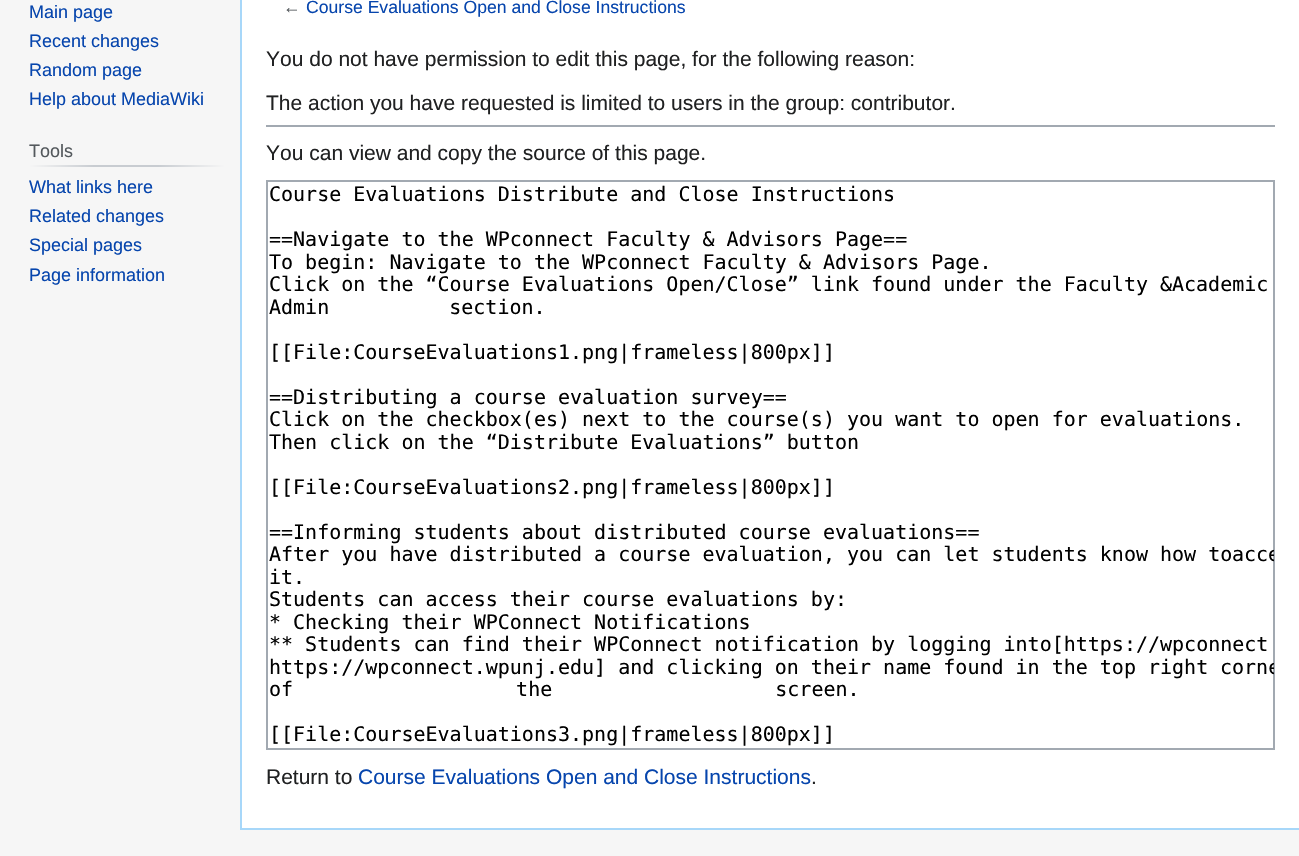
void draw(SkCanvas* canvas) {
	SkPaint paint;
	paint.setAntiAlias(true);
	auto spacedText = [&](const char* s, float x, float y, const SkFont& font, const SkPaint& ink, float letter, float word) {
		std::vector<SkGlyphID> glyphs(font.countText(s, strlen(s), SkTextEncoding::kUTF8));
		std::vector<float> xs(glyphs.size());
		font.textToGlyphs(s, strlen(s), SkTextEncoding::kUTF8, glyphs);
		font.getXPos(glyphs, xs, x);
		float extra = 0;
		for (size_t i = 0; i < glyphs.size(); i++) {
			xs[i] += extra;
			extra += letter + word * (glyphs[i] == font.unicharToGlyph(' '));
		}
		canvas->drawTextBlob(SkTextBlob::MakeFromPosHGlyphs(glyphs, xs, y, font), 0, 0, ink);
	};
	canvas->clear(0xfff6f6f6);
	SkFont f1(fontMgr->matchFamilyStyle("Liberation Sans", SkFontStyle::Normal()), 18);
	f1.setSubpixel(true);
	paint.setColor(0xff0645ad);
	canvas->drawString("Main page", 29, 18, f1, paint);
	canvas->drawString("Recent changes", 29, 47, f1, paint);
	canvas->drawString("Random page", 29, 76, f1, paint);
	canvas->drawString("Help about MediaWiki", 29, 105, f1, paint);
	{
		const SkColor colors[] = {0xfff6f6f6, 0xffc8ccd1, 0xffc8ccd1, 0xfff6f6f6};
		const float stops[] = {0, 0.33, 0.66, 1};
		const SkPoint ends[] = {{29, 166}, {225, 166}};
		paint.setShader(SkGradientShader::MakeLinear(ends, colors, stops, 4, SkTileMode::kClamp));
		paint.setAlpha(255);
	}
	canvas->drawRect(SkRect::MakeXYWH(29, 165, 196, 2), paint);
	paint.setShader(nullptr);
	paint.setColor(0xff54595d);
	canvas->drawString("Tools", 29, 157, f1, paint);
	paint.setColor(0xff0645ad);
	canvas->drawString("What links here", 29, 193, f1, paint);
	canvas->drawString("Related changes", 29, 222, f1, paint);
	canvas->drawString("Special pages", 29, 251, f1, paint);
	canvas->drawString("Page information", 29, 281, f1, paint);
	paint.setColor(0xffffffff);
	canvas->drawRect(SkRect::MakeXYWH(242, 0, 1057, 828), paint);
	paint.setColor(0xffa7d7f9);
	canvas->drawRect(SkRect::MakeXYWH(240, 828, 1059, 2), paint);
	canvas->drawRect(SkRect::MakeXYWH(240, 0, 2, 830), paint);
	SkFont f2(fontMgr->matchFamilyStyle("Liberation Sans", SkFontStyle::Normal()), 17.6);
	f2.setSubpixel(true);
	paint.setColor(0xff54595d);
	canvas->drawString("←", 283, 13, f2, paint);
	paint.setColor(0xff0645ad);
	canvas->drawString("Course Evaluations Open and Close Instructions", 306, 13, f2, paint);
	SkFont f3(fontMgr->matchFamilyStyle("Liberation Sans", SkFontStyle::Normal()), 21);
	f3.setSubpixel(true);
	paint.setColor(0xff202122);
	canvas->drawString("You do not have permission to edit this page, for the following reason:", 266, 66, f3, paint);
	canvas->drawString("The action you have requested is limited to users in the group: contributor.", 266, 110, f3, paint);
	paint.setColor(0xffa2a9b1);
	canvas->drawRect(SkRect::MakeXYWH(266, 125, 1009, 2), paint);
	paint.setColor(0xff202122);
	canvas->drawString("You can view and copy the source of this page.", 266, 160, f3, paint);
	paint.setStroke(true);
	paint.setStrokeWidth(2);
	paint.setColor(0xffa2a9b1);
	canvas->drawRect(SkRect::MakeXYWH(267, 181, 1007, 568), paint);
	SkFont f4(fontMgr->matchFamilyStyle("DejaVu Sans Mono", SkFontStyle::Normal()), 20);
	f4.setSubpixel(true);
	paint.setStroke(false);
	paint.setColor(0xff000000);
	canvas->drawString("Course Evaluations Distribute and Close Instructions", 269, 201, f4, paint);
	canvas->drawString("==Navigate to the WPconnect Faculty & Advisors Page==", 269, 246, f4, paint);
	canvas->drawString("To begin: Navigate to the WPconnect Faculty & Advisors Page.", 269, 269, f4, paint);
	canvas->drawString("Click on the “Course Evaluations Open/Close” link found under the Faculty &", 269, 291, f4, paint);
	canvas->drawString("Academic", 1172, 291, f4, paint);
	spacedText("Admin section.", 269, 314, f4, paint, 0, 108);
	canvas->drawString("[[File:CourseEvaluations1.png|frameless|800px]]", 269, 359, f4, paint);
	canvas->drawString("==Distributing a course evaluation survey==", 269, 404, f4, paint);
	canvas->drawString("Click on the checkbox(es) next to the course(s) you want to open for evaluations.", 269, 426, f4, paint);
	canvas->drawString("Then click on the “Distribute Evaluations” button", 269, 449, f4, paint);
	canvas->drawString("[[File:CourseEvaluations2.png|frameless|800px]]", 269, 494, f4, paint);
	canvas->drawString("==Informing students about distributed course evaluations==", 269, 539, f4, paint);
	canvas->drawString("After you have distributed a course evaluation, you can let students know how to", 269, 561, f4, paint);
	canvas->save();
	canvas->clipRect(SkRect::MakeXYWH(267, 182, 1007, 567));
	canvas->drawString("acce", 1232, 561, f4, paint);
	canvas->restore();
	canvas->drawString("it.", 269, 584, f4, paint);
	canvas->drawString("Students can access their course evaluations by:", 269, 606, f4, paint);
	canvas->drawString("* Checking their WPConnect Notifications", 269, 629, f4, paint);
	canvas->drawString("** Students can find their WPConnect notification by logging into[https://wpconnect", 269, 651, f4, paint);
	canvas->drawString("https://wpconnect.wpunj.edu] and clicking on their name found in the top right", 269, 674, f4, paint);
	canvas->save();
	canvas->clipRect(SkRect::MakeXYWH(267, 182, 1007, 567));
	canvas->drawString("corne", 1220, 674, f4, paint);
	canvas->restore();
	spacedText("of the screen.", 269, 696, f4, paint, 0, 211);
	canvas->drawString("[[File:CourseEvaluations3.png|frameless|800px]]", 269, 741, f4, paint);
	paint.setColor(0xff202122);
	canvas->drawString("Return to", 266, 784, f3, paint);
	paint.setColor(0xff0645ad);
	canvas->drawString("Course Evaluations Open and Close Instructions", 358, 784, f3, paint);
	paint.setColor(0xff202122);
	canvas->drawString(".", 811, 784, f3, paint);
}
